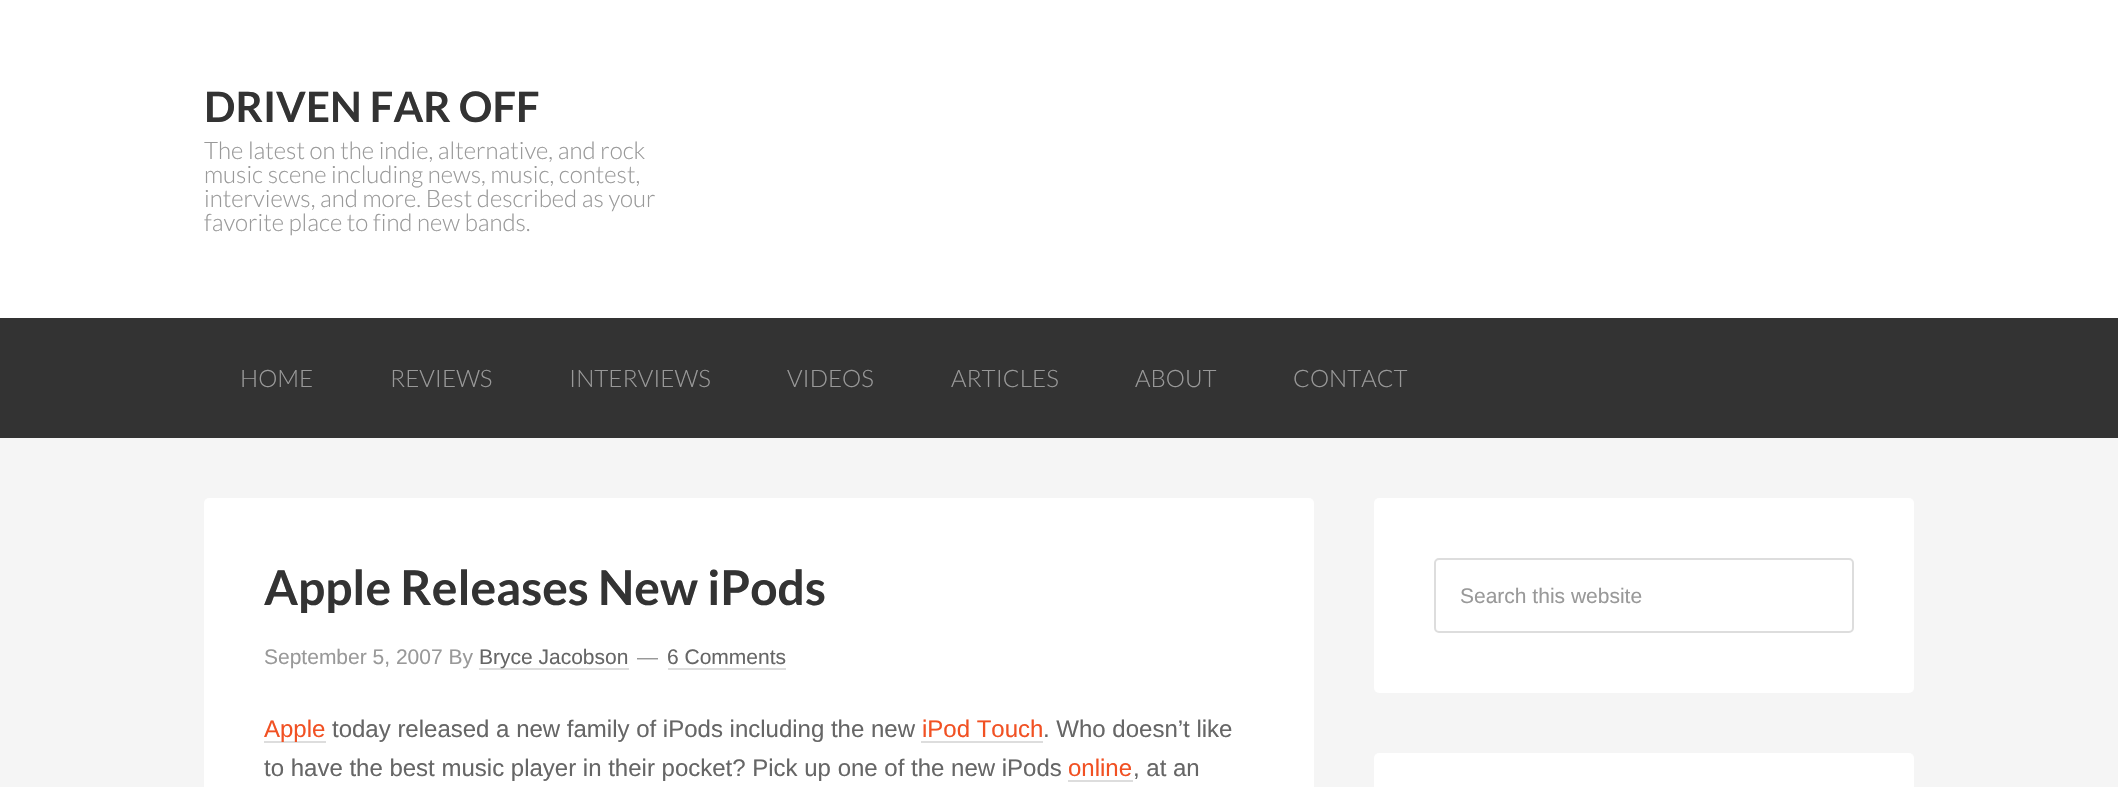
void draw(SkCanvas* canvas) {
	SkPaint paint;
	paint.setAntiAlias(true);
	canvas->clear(0xfff5f5f5);
	paint.setColor(0xffffffff);
	canvas->drawRect(SkRect::MakeXYWH(0, 0, 2118, 318), paint);
	SkFont f1(fontMgr->matchFamilyStyle("Lato", SkFontStyle::Bold()), 42);
	f1.setSubpixel(true);
	paint.setColor(0xff333333);
	canvas->drawString("DRIVEN FAR OFF", 204, 122, f1, paint);
	SkFont f2(fontMgr->matchFamilyStyle("Lato", SkFontStyle(300, SkFontStyle::kNormal_Width, SkFontStyle::kUpright_Slant)), 24);
	f2.setSubpixel(true);
	paint.setColor(0xff999999);
	canvas->drawString("The latest on the indie, alternative, and rock", 204, 159, f2, paint);
	canvas->drawString("music scene including news, music, contest,", 204, 183, f2, paint);
	canvas->drawString("interviews, and more. Best described as your", 204, 207, f2, paint);
	canvas->drawString("favorite place to find new bands.", 204, 231, f2, paint);
	paint.setColor(0xff333333);
	canvas->drawRect(SkRect::MakeXYWH(0, 318, 2118, 120), paint);
	paint.setColor(0xff999999);
	canvas->drawString("HOME", 240, 387, f2, paint);
	canvas->drawString("REVIEWS", 390, 387, f2, paint);
	canvas->drawString("INTERVIEWS", 569, 387, f2, paint);
	canvas->drawString("VIDEOS", 787, 387, f2, paint);
	canvas->drawString("ARTICLES", 951, 387, f2, paint);
	canvas->drawString("ABOUT", 1135, 387, f2, paint);
	canvas->drawString("CONTACT", 1293, 387, f2, paint);
	paint.setColor(0xffffffff);
	canvas->drawRoundRect(SkRect::MakeXYWH(204, 498, 1110, 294), 5, 5, paint);
	SkFont f3(fontMgr->matchFamilyStyle("Lato", SkFontStyle::Bold()), 48);
	f3.setSubpixel(true);
	paint.setColor(0xff333333);
	canvas->drawString("Apple Releases New iPods", 264, 605, f3, paint);
	SkFont f4(fontMgr->matchFamilyStyle("Liberation Sans", SkFontStyle::Normal()), 21);
	f4.setSubpixel(true);
	paint.setColor(0xff999999);
	canvas->drawString("September 5, 2007 By", 264, 664, f4, paint);
	paint.setColor(0xffdddddd);
	canvas->drawRect(SkRect::MakeXYWH(479, 668, 150, 2), paint);
	paint.setColor(0xff666666);
	canvas->drawString("Bryce Jacobson", 479, 664, f4, paint);
	paint.setColor(0xff999999);
	canvas->drawString("—", 637, 664, f4, paint);
	paint.setColor(0xff666666);
	canvas->drawString("6 Comments", 667, 664, f4, paint);
	paint.setColor(0xffdddddd);
	canvas->drawRect(SkRect::MakeXYWH(668, 668, 118, 2), paint);
	canvas->drawRect(SkRect::MakeXYWH(264, 741, 62, 2), paint);
	SkFont f5(fontMgr->matchFamilyStyle("Liberation Sans", SkFontStyle::Normal()), 24);
	f5.setSubpixel(true);
	paint.setColor(0xfff15123);
	canvas->drawString("Apple", 264, 737, f5, paint);
	paint.setColor(0xff666666);
	canvas->drawString("today released a new family of iPods including the new", 332, 737, f5, paint);
	paint.setColor(0xfff15123);
	canvas->drawString("iPod Touch", 922, 737, f5, paint);
	paint.setColor(0xffdddddd);
	canvas->drawRect(SkRect::MakeXYWH(921, 741, 122, 2), paint);
	paint.setColor(0xff666666);
	canvas->drawString(". Who doesn’t like", 1043, 737, f5, paint);
	canvas->drawString("to have the best music player in their pocket? Pick up one of the new iPods", 264, 776, f5, paint);
	paint.setColor(0xfff15123);
	canvas->drawString("online", 1068, 776, f5, paint);
	paint.setColor(0xffdddddd);
	canvas->drawRect(SkRect::MakeXYWH(1068, 780, 65, 2), paint);
	paint.setColor(0xff666666);
	canvas->drawString(", at an", 1133, 776, f5, paint);
	paint.setColor(0xffffffff);
	canvas->drawRoundRect(SkRect::MakeXYWH(1374, 498, 540, 195), 5, 5, paint);
	paint.setStroke(true);
	paint.setStrokeWidth(2);
	paint.setColor(0xffdddddd);
	canvas->drawRoundRect(SkRect::MakeXYWH(1435, 559, 418, 73), 4, 4, paint);
	paint.setStroke(false);
	paint.setColor(0xff999999);
	canvas->drawString("Search this website", 1460, 603, f4, paint);
	paint.setColor(0xffffffff);
	canvas->drawRoundRect(SkRect::MakeXYWH(1374, 753, 540, 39), 5, 5, paint);
}
